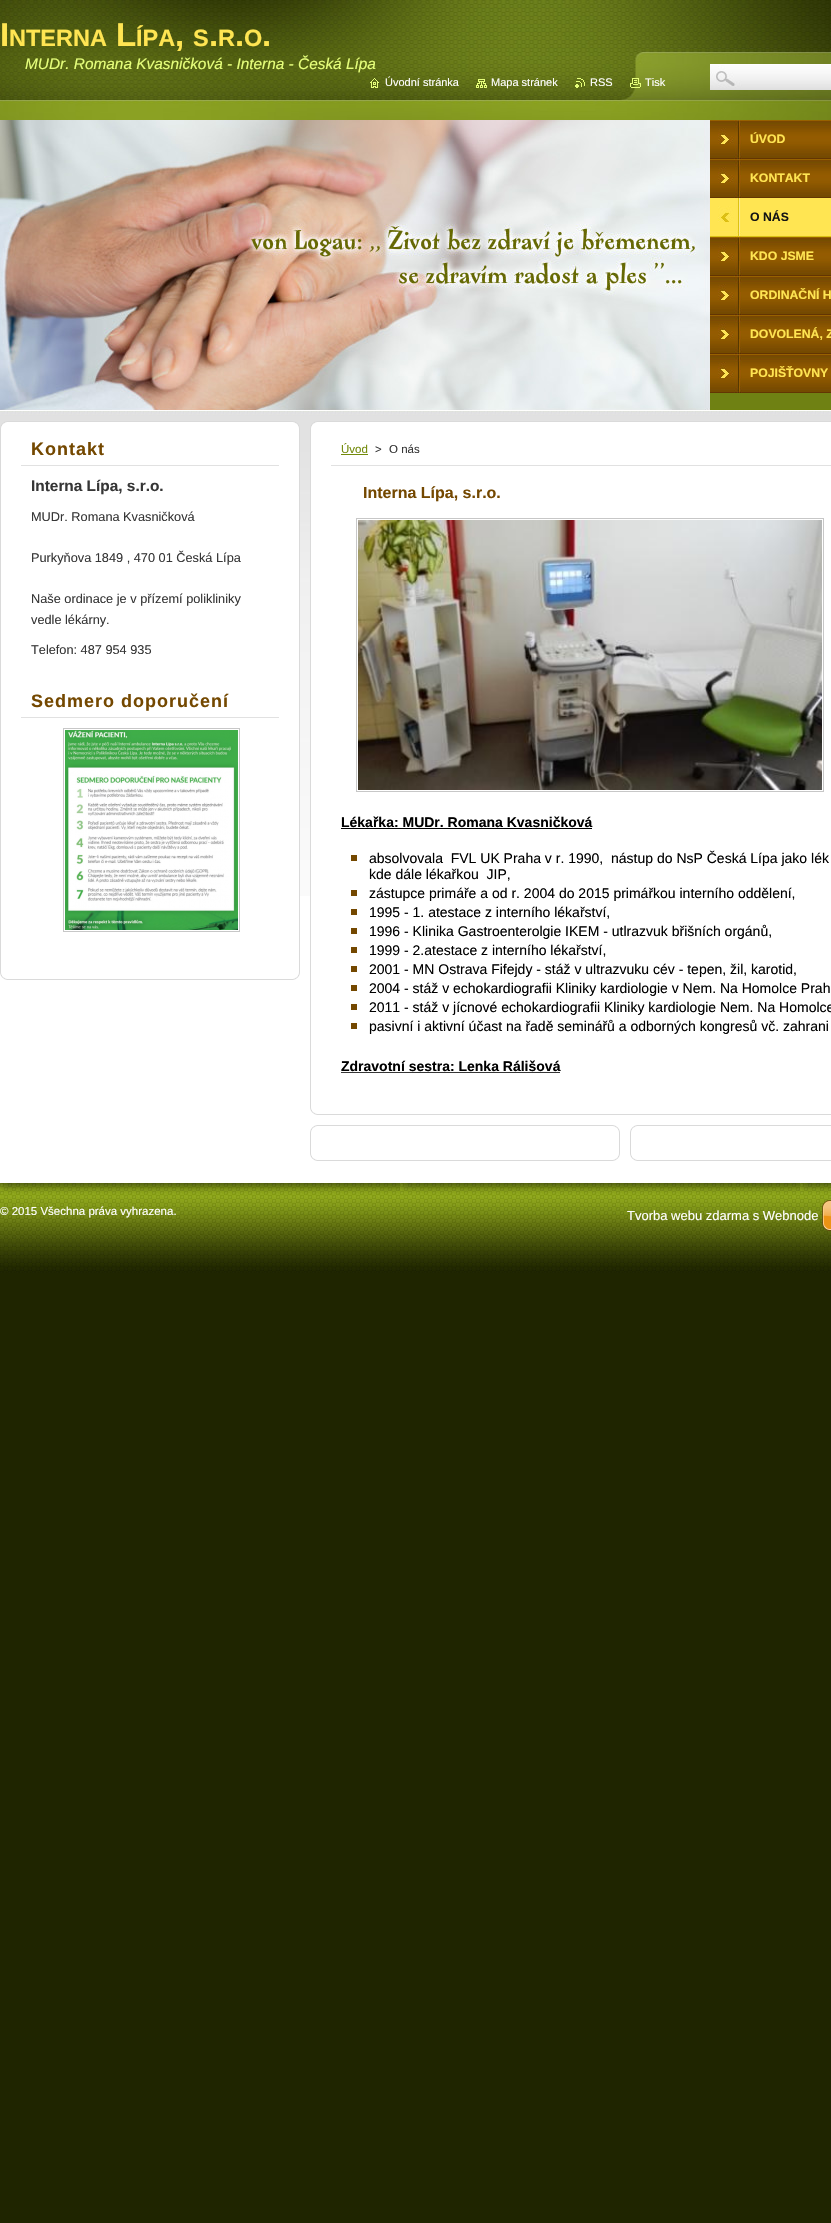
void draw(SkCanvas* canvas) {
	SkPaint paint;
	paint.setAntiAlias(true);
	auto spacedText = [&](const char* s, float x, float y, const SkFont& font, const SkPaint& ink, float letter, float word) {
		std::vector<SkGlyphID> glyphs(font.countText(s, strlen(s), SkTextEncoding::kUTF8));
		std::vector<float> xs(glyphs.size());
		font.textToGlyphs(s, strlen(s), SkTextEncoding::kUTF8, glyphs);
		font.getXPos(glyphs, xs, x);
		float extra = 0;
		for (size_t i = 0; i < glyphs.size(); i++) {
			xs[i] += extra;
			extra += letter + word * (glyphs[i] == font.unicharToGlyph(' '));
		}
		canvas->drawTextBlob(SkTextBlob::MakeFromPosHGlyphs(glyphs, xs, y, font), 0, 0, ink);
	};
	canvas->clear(0xff1f2500);
	paint.setColor(0xffffffff);
	canvas->drawRect(SkRect::MakeXYWH(0, 896, 831, 287), paint);
	canvas->drawImageRect(SkImages::DeferredFromEncodedData(SkData::MakeFromFileName("img1.png")), SkRect::MakeXYWH(0, 411, 831, 485), SkSamplingOptions());
	canvas->drawImageRect(SkImages::DeferredFromEncodedData(SkData::MakeFromFileName("img2.png")), SkRect::MakeXYWH(0, 0, 831, 411), SkSamplingOptions());
	SkFont f1(fontMgr->matchFamilyStyle("Liberation Sans", SkFontStyle::Bold()), 33);
	f1.setSubpixel(true);
	paint.setColor(0xffffe552);
	canvas->drawString("I", 0, 46, f1, paint);
	SkFont f2(fontMgr->matchFamilyStyle("Liberation Sans", SkFontStyle::Bold()), 23.5);
	f2.setSubpixel(true);
	canvas->drawString("NTERNA", 9, 46, f2, paint);
	canvas->drawString("L", 116, 46, f1, paint);
	canvas->drawString("ÍPA", 136, 46, f2, paint);
	canvas->drawString(",", 175, 46, f1, paint);
	canvas->drawString("S", 193, 46, f2, paint);
	canvas->drawString(".", 209, 46, f1, paint);
	canvas->drawString("R", 218, 46, f2, paint);
	canvas->drawString(".", 235, 46, f1, paint);
	canvas->drawString("O", 244, 46, f2, paint);
	canvas->drawString(".", 262, 46, f1, paint);
	SkFont f3(fontMgr->matchFamilyStyle("Liberation Sans", SkFontStyle::Italic()), 15.4);
	f3.setSubpixel(true);
	paint.setColor(0xffe6ff7b);
	canvas->drawString("MUDr. Romana Kvasničková - Interna - Česká Lípa", 25, 69, f3, paint);
	canvas->drawImageRect(SkImages::DeferredFromEncodedData(SkData::MakeFromFileName("img3.png")), SkRect::MakeXYWH(0, 120, 710, 290), SkSamplingOptions());
	canvas->drawImageRect(SkImages::DeferredFromEncodedData(SkData::MakeFromFileName("img4.png")), SkRect::MakeXYWH(370, 78, 9, 10), SkSamplingOptions());
	SkFont f4(fontMgr->matchFamilyStyle("Liberation Sans", SkFontStyle::Normal()), 11);
	f4.setSubpixel(true);
	paint.setColor(0xffffffff);
	canvas->drawString("Úvodní stránka", 385, 86, f4, paint);
	canvas->drawImageRect(SkImages::DeferredFromEncodedData(SkData::MakeFromFileName("img5.png")), SkRect::MakeXYWH(476, 79, 11, 9), SkSamplingOptions());
	canvas->drawString("Mapa stránek", 491, 86, f4, paint);
	canvas->drawImageRect(SkImages::DeferredFromEncodedData(SkData::MakeFromFileName("img6.png")), SkRect::MakeXYWH(575, 78, 10, 10), SkSamplingOptions());
	canvas->drawString("RSS", 590, 86, f4, paint);
	canvas->drawImageRect(SkImages::DeferredFromEncodedData(SkData::MakeFromFileName("img7.png")), SkRect::MakeXYWH(630, 78, 11, 10), SkSamplingOptions());
	canvas->drawString("Tisk", 645, 86, f4, paint);
	canvas->drawRect(SkRect::MakeXYWH(710, 64, 121, 1), paint);
	canvas->drawImageRect(SkImages::DeferredFromEncodedData(SkData::MakeFromFileName("img8.png")), SkRect::MakeXYWH(710, 65, 121, 25), SkSamplingOptions());
	canvas->drawImageRect(SkImages::DeferredFromEncodedData(SkData::MakeFromFileName("img9.png")), SkRect::MakeXYWH(710, 120, 121, 39), SkSamplingOptions());
	SkFont f5(fontMgr->matchFamilyStyle("Liberation Sans", SkFontStyle::Bold()), 12.25);
	f5.setSubpixel(true);
	paint.setColor(0xffffe552);
	canvas->drawString("ÚVOD", 750, 143, f5, paint);
	canvas->drawImageRect(SkImages::DeferredFromEncodedData(SkData::MakeFromFileName("img9.png")), SkRect::MakeXYWH(710, 159, 121, 39), SkSamplingOptions());
	canvas->drawString("KONTAKT", 750, 182, f5, paint);
	canvas->drawImageRect(SkImages::DeferredFromEncodedData(SkData::MakeFromFileName("img10.png")), SkRect::MakeXYWH(710, 198, 121, 39), SkSamplingOptions());
	paint.setColor(0xff141414);
	canvas->drawString("O NÁS", 750, 221, f5, paint);
	canvas->drawImageRect(SkImages::DeferredFromEncodedData(SkData::MakeFromFileName("img9.png")), SkRect::MakeXYWH(710, 237, 121, 39), SkSamplingOptions());
	paint.setColor(0xffffe552);
	canvas->drawString("KDO JSME", 750, 260, f5, paint);
	canvas->drawImageRect(SkImages::DeferredFromEncodedData(SkData::MakeFromFileName("img9.png")), SkRect::MakeXYWH(710, 276, 121, 39), SkSamplingOptions());
	canvas->drawString("ORDINAČNÍ H", 750, 299, f5, paint);
	canvas->drawImageRect(SkImages::DeferredFromEncodedData(SkData::MakeFromFileName("img9.png")), SkRect::MakeXYWH(710, 315, 121, 39), SkSamplingOptions());
	canvas->drawString("DOVOLENÁ, Z", 750, 338, f5, paint);
	canvas->drawImageRect(SkImages::DeferredFromEncodedData(SkData::MakeFromFileName("img9.png")), SkRect::MakeXYWH(710, 354, 121, 39), SkSamplingOptions());
	canvas->drawString("POJIŠŤOVNY", 750, 377, f5, paint);
	canvas->drawImageRect(SkImages::DeferredFromEncodedData(SkData::MakeFromFileName("img11.png")), SkRect::MakeXYWH(0, 421, 300, 8), SkSamplingOptions());
	paint.setColor(0xffffffff);
	canvas->drawRect(SkRect::MakeXYWH(1, 429, 298, 467), paint);
	paint.setColor(0xffdadada);
	canvas->drawRect(SkRect::MakeXYWH(299, 429, 1, 543), paint);
	canvas->drawRect(SkRect::MakeXYWH(0, 429, 1, 543), paint);
	paint.setColor(0xffe1e1e1);
	canvas->drawRect(SkRect::MakeXYWH(21, 465, 258, 1), paint);
	SkFont f6(fontMgr->matchFamilyStyle("Liberation Sans", SkFontStyle::Bold()), 18);
	f6.setSubpixel(true);
	paint.setColor(0xff744800);
	spacedText("Kontakt", 31, 455, f6, paint, 1, 0);
	SkFont f7(fontMgr->matchFamilyStyle("Liberation Sans", SkFontStyle::Bold()), 15.4);
	f7.setSubpixel(true);
	paint.setColor(0xff363636);
	canvas->drawString("Interna Lípa, s.r.o.", 31, 491, f7, paint);
	SkFont f8(fontMgr->matchFamilyStyle("Liberation Sans", SkFontStyle::Normal()), 12.75);
	f8.setSubpixel(true);
	canvas->drawString("MUDr. Romana Kvasničková", 31, 521, f8, paint);
	canvas->drawString("Purkyňova 1849 , 470 01 Česká Lípa", 31, 562, f8, paint);
	canvas->drawString("Naše ordinace je v přízemí polikliniky", 31, 603, f8, paint);
	canvas->drawString("vedle lékárny.", 31, 624, f8, paint);
	canvas->drawString("Telefon: 487 954 935", 31, 654, f8, paint);
	paint.setColor(0xffe1e1e1);
	canvas->drawRect(SkRect::MakeXYWH(21, 717, 258, 1), paint);
	paint.setColor(0xff744800);
	spacedText("Sedmero doporučení", 31, 707, f6, paint, 1, 0);
	paint.setStroke(true);
	paint.setStrokeWidth(1);
	paint.setColor(0xffc7c7c7);
	canvas->drawRect(SkRect::MakeXYWH(63.5, 728.5, 176, 203), paint);
	canvas->drawImageRect(SkImages::DeferredFromEncodedData(SkData::MakeFromFileName("img12.png")), SkRect::MakeXYWH(65, 730, 173, 200), SkSamplingOptions());
	canvas->drawImageRect(SkImages::DeferredFromEncodedData(SkData::MakeFromFileName("img13.png")), SkRect::MakeXYWH(0, 972, 300, 8), SkSamplingOptions());
	canvas->drawImageRect(SkImages::DeferredFromEncodedData(SkData::MakeFromFileName("img14.png")), SkRect::MakeXYWH(310, 421, 521, 8), SkSamplingOptions());
	paint.setStroke(false);
	paint.setColor(0xffffffff);
	canvas->drawRect(SkRect::MakeXYWH(311, 429, 520, 467), paint);
	paint.setColor(0xffdadada);
	canvas->drawRect(SkRect::MakeXYWH(310, 429, 1, 678), paint);
	paint.setColor(0xffe1e1e1);
	canvas->drawRect(SkRect::MakeXYWH(331, 465, 500, 1), paint);
	SkFont f9(fontMgr->matchFamilyStyle("Liberation Sans", SkFontStyle::Normal()), 11.5);
	f9.setSubpixel(true);
	paint.setColor(0xff738a0b);
	canvas->drawString("Úvod", 341, 453, f9, paint);
	canvas->drawRect(SkRect::MakeXYWH(341, 454, 27, 1), paint);
	paint.setColor(0xff363636);
	canvas->drawString(">", 375, 453, f9, paint);
	canvas->drawString("O nás", 389, 453, f9, paint);
	SkFont f10(fontMgr->matchFamilyStyle("Liberation Sans", SkFontStyle::Bold()), 16);
	f10.setSubpixel(true);
	paint.setColor(0xff744800);
	canvas->drawString("Interna Lípa, s.r.o.", 363, 498, f10, paint);
	paint.setStroke(true);
	paint.setColor(0xffc7c7c7);
	canvas->drawRect(SkRect::MakeXYWH(356.5, 518.5, 467, 273), paint);
	canvas->drawImageRect(SkImages::DeferredFromEncodedData(SkData::MakeFromFileName("img15.png")), SkRect::MakeXYWH(358, 520, 464, 270), SkSamplingOptions());
	SkFont f11(fontMgr->matchFamilyStyle("Liberation Sans", SkFontStyle::Bold()), 14);
	f11.setSubpixel(true);
	paint.setStroke(false);
	paint.setColor(0xff000000);
	canvas->drawString("Lékařka: MUDr. Romana Kvasničková", 341, 827, f11, paint);
	canvas->drawRect(SkRect::MakeXYWH(341, 828, 251, 1), paint);
	paint.setColor(0xff744800);
	canvas->drawRect(SkRect::MakeXYWH(351, 855, 6, 6), paint);
	SkFont f12(fontMgr->matchFamilyStyle("Liberation Sans", SkFontStyle::Normal()), 14);
	f12.setSubpixel(true);
	paint.setColor(0xff000000);
	canvas->drawString("absolvovala  FVL UK Praha v r. 1990,  nástup do NsP Česká Lípa jako lék", 369, 863, f12, paint);
	canvas->drawString("kde dále lékařkou  JIP,", 369, 879, f12, paint);
	paint.setColor(0xff744800);
	canvas->drawRect(SkRect::MakeXYWH(351, 890, 6, 6), paint);
	paint.setColor(0xff000000);
	canvas->drawString("zástupce primáře a od r. 2004 do 2015 primářkou interního oddělení,", 369, 898, f12, paint);
	paint.setColor(0xff744800);
	canvas->drawRect(SkRect::MakeXYWH(351, 909, 6, 6), paint);
	paint.setColor(0xff000000);
	canvas->drawString("1995 - 1. atestace z interního lékařství,", 369, 917, f12, paint);
	paint.setColor(0xff744800);
	canvas->drawRect(SkRect::MakeXYWH(351, 928, 6, 6), paint);
	paint.setColor(0xff000000);
	canvas->drawString("1996 - Klinika Gastroenterolgie IKEM - utlrazvuk břišních orgánů,", 369, 936, f12, paint);
	paint.setColor(0xff744800);
	canvas->drawRect(SkRect::MakeXYWH(351, 947, 6, 6), paint);
	paint.setColor(0xff000000);
	canvas->drawString("1999 - 2.atestace z interního lékařství,", 369, 955, f12, paint);
	paint.setColor(0xff744800);
	canvas->drawRect(SkRect::MakeXYWH(351, 966, 6, 6), paint);
	paint.setColor(0xff000000);
	canvas->drawString("2001 - MN Ostrava Fifejdy - stáž v ultrazvuku cév - tepen, žil, karotid,", 369, 974, f12, paint);
	paint.setColor(0xff744800);
	canvas->drawRect(SkRect::MakeXYWH(351, 985, 6, 6), paint);
	paint.setColor(0xff000000);
	canvas->drawString("2004 - stáž v echokardiografii Kliniky kardiologie v Nem. Na Homolce Prah", 369, 993, f12, paint);
	paint.setColor(0xff744800);
	canvas->drawRect(SkRect::MakeXYWH(351, 1004, 6, 6), paint);
	paint.setColor(0xff000000);
	canvas->drawString("2011 - stáž v jícnové echokardiografii Kliniky kardiologie Nem. Na Homolce", 369, 1012, f12, paint);
	paint.setColor(0xff744800);
	canvas->drawRect(SkRect::MakeXYWH(351, 1023, 6, 6), paint);
	paint.setColor(0xff000000);
	canvas->drawString("pasivní i aktivní účast na řadě seminářů a odborných kongresů vč. zahrani", 369, 1031, f12, paint);
	canvas->drawString("Zdravotní sestra: Lenka Rálišová", 341, 1071, f11, paint);
	paint.setColor(0xff363636);
	canvas->drawRect(SkRect::MakeXYWH(341, 1072, 219, 1), paint);
	canvas->drawImageRect(SkImages::DeferredFromEncodedData(SkData::MakeFromFileName("img16.png")), SkRect::MakeXYWH(310, 1107, 521, 8), SkSamplingOptions());
	canvas->drawImageRect(SkImages::DeferredFromEncodedData(SkData::MakeFromFileName("img17.png")), SkRect::MakeXYWH(310, 1125, 310, 8), SkSamplingOptions());
	paint.setColor(0xffdadada);
	canvas->drawRect(SkRect::MakeXYWH(619, 1133, 1, 20), paint);
	canvas->drawRect(SkRect::MakeXYWH(310, 1133, 1, 20), paint);
	canvas->drawImageRect(SkImages::DeferredFromEncodedData(SkData::MakeFromFileName("img18.png")), SkRect::MakeXYWH(310, 1153, 310, 8), SkSamplingOptions());
	canvas->drawImageRect(SkImages::DeferredFromEncodedData(SkData::MakeFromFileName("img19.png")), SkRect::MakeXYWH(630, 1125, 201, 8), SkSamplingOptions());
	canvas->drawRect(SkRect::MakeXYWH(630, 1133, 1, 20), paint);
	canvas->drawImageRect(SkImages::DeferredFromEncodedData(SkData::MakeFromFileName("img20.png")), SkRect::MakeXYWH(630, 1153, 201, 8), SkSamplingOptions());
	canvas->drawImageRect(SkImages::DeferredFromEncodedData(SkData::MakeFromFileName("img21.png")), SkRect::MakeXYWH(0, 1183, 831, 90), SkSamplingOptions());
	paint.setColor(0xffffffff);
	canvas->drawString("© 2015 Všechna práva vyhrazena.", 0, 1215, f9, paint);
	SkFont f13(fontMgr->matchFamilyStyle("Liberation Sans", SkFontStyle::Normal()), 13);
	f13.setSubpixel(true);
	canvas->drawString("Tvorba webu zdarma s Webnode", 627, 1220, f13, paint);
	canvas->drawImageRect(SkImages::DeferredFromEncodedData(SkData::MakeFromFileName("img22.png")), SkRect::MakeXYWH(822, 1200, 9, 31), SkSamplingOptions());
}
